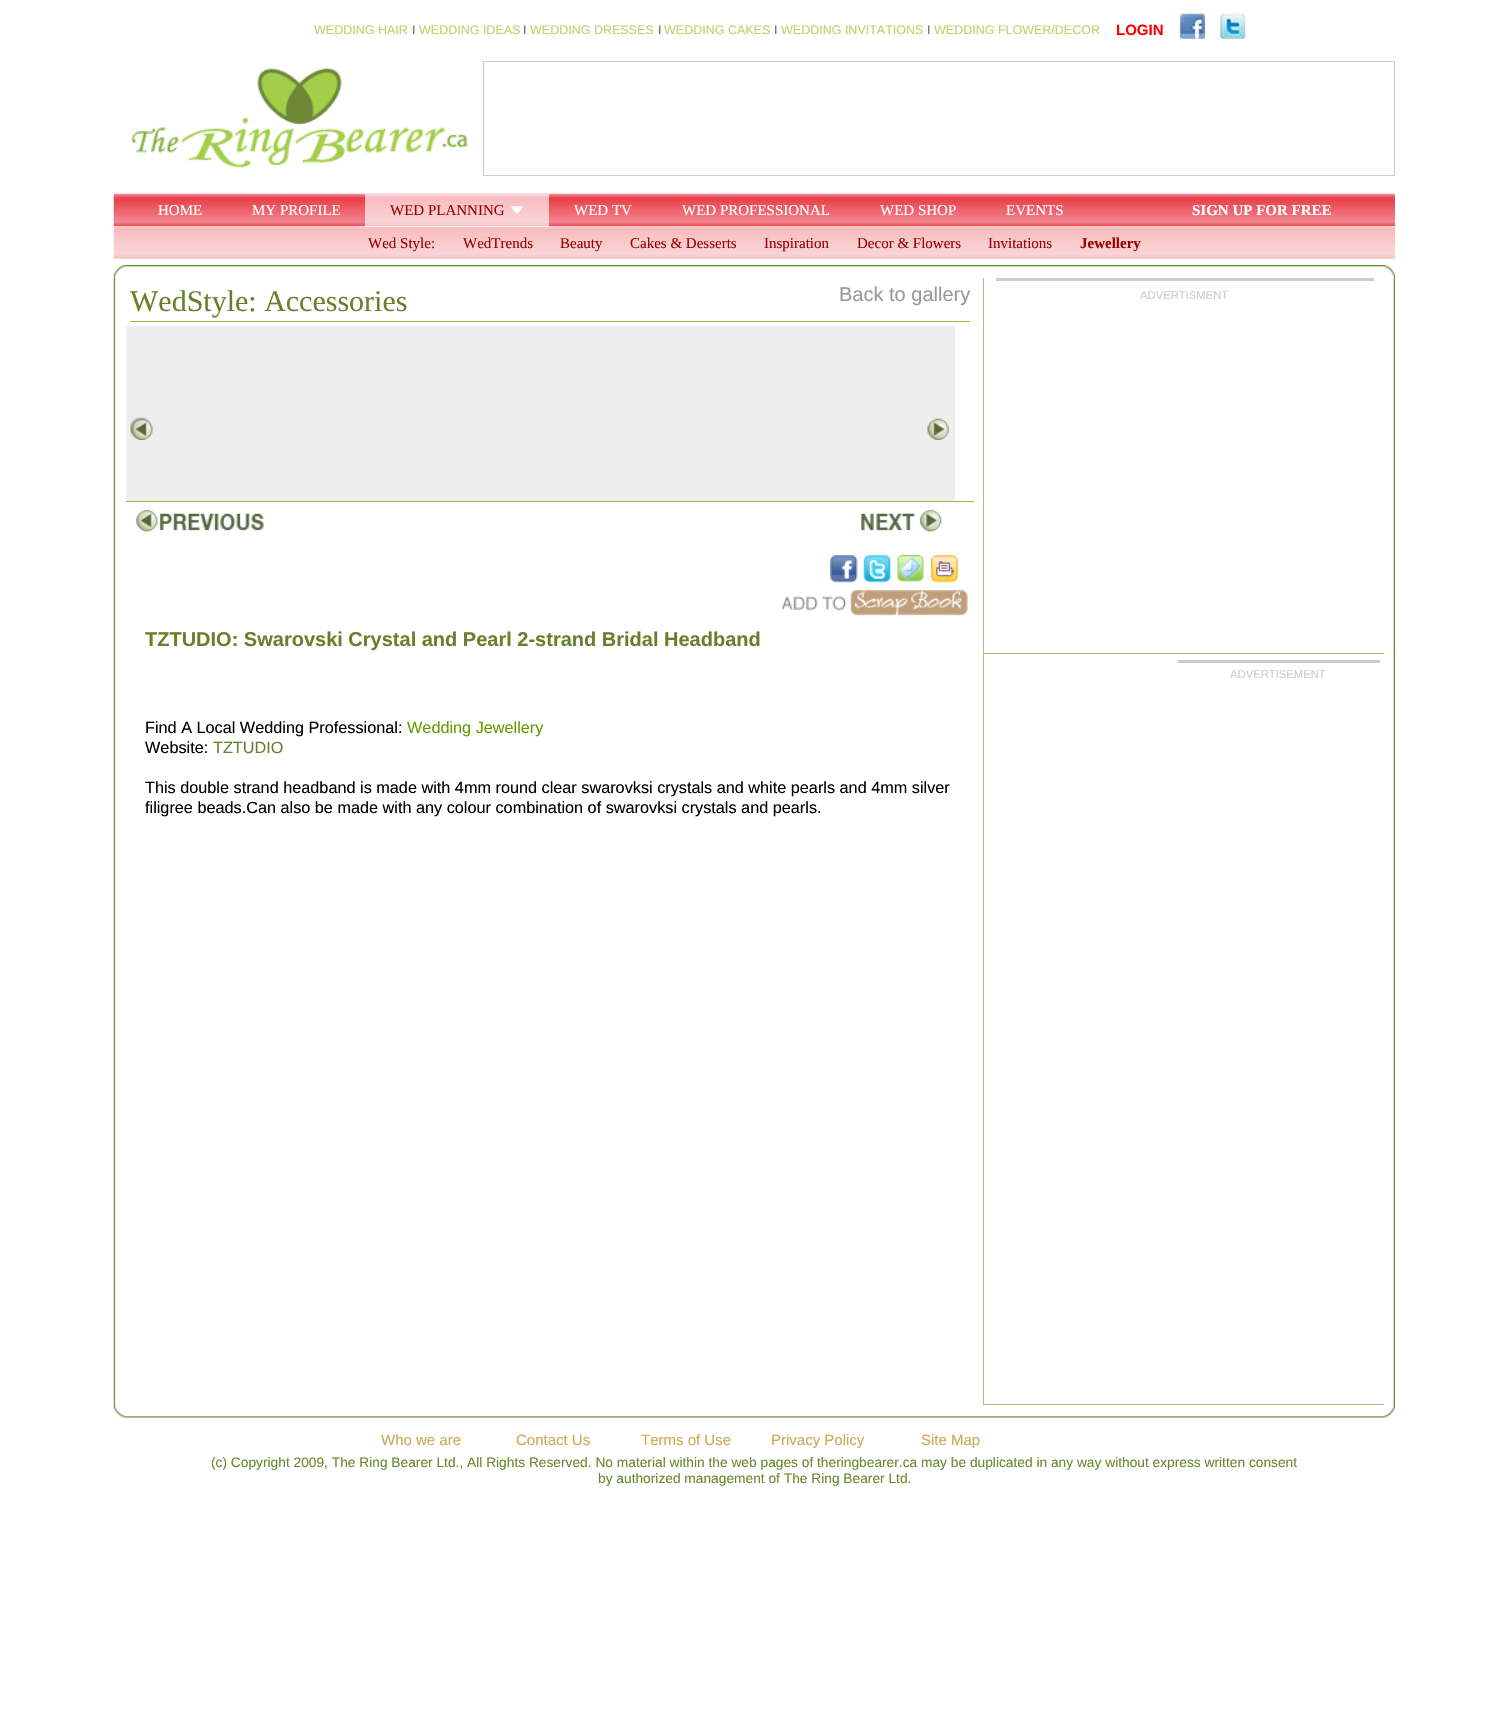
void draw(SkCanvas* canvas) {
	SkPaint paint;
	paint.setAntiAlias(true);
	canvas->clear(0xffffffff);
	SkFont f1(fontMgr->matchFamilyStyle("Liberation Sans", SkFontStyle::Normal()), 12.5);
	f1.setSubpixel(true);
	paint.setColor(0xffb9d66b);
	canvas->drawString("WEDDING HAIR", 314, 34, f1, paint);
	paint.setColor(0xff666666);
	canvas->drawString("I", 412, 34, f1, paint);
	paint.setColor(0xffb9d66b);
	canvas->drawString("WEDDING IDEAS", 419, 34, f1, paint);
	paint.setColor(0xff666666);
	canvas->drawString("I", 523, 34, f1, paint);
	paint.setColor(0xffb9d66b);
	canvas->drawString("WEDDING DRESSES", 530, 34, f1, paint);
	paint.setColor(0xff666666);
	canvas->drawString("I", 658, 34, f1, paint);
	paint.setColor(0xffb9d66b);
	canvas->drawString("WEDDING CAKES", 664, 34, f1, paint);
	paint.setColor(0xff666666);
	canvas->drawString("I", 774, 34, f1, paint);
	paint.setColor(0xffb9d66b);
	canvas->drawString("WEDDING INVITATIONS", 781, 34, f1, paint);
	paint.setColor(0xff666666);
	canvas->drawString("I", 927, 34, f1, paint);
	paint.setColor(0xffb9d66b);
	canvas->drawString("WEDDING FLOWER/DECOR", 934, 34, f1, paint);
	SkFont f2(fontMgr->matchFamilyStyle("Liberation Sans", SkFontStyle::Bold()), 15);
	f2.setSubpixel(true);
	paint.setColor(0xffff0000);
	canvas->drawString("LOGIN", 1116, 35, f2, paint);
	canvas->drawImageRect(SkImages::DeferredFromEncodedData(SkData::MakeFromFileName("img1.png")), SkRect::MakeXYWH(1179, 13, 27, 26), SkSamplingOptions());
	canvas->drawImageRect(SkImages::DeferredFromEncodedData(SkData::MakeFromFileName("img2.png")), SkRect::MakeXYWH(1219, 13, 27, 26), SkSamplingOptions());
	canvas->drawImageRect(SkImages::DeferredFromEncodedData(SkData::MakeFromFileName("img3.png")), SkRect::MakeXYWH(131, 68, 337, 100), SkSamplingOptions());
	paint.setStroke(true);
	paint.setStrokeWidth(1);
	paint.setColor(0xffcccccc);
	canvas->drawRect(SkRect::MakeXYWH(483.5, 61.5, 911, 114), paint);
	canvas->drawImageRect(SkImages::DeferredFromEncodedData(SkData::MakeFromFileName("img4.png")), SkRect::MakeXYWH(113, 193, 1282, 34), SkSamplingOptions());
	SkFont f3(fontMgr->matchFamilyStyle("Liberation Serif", SkFontStyle::Normal()), 15);
	f3.setSubpixel(true);
	paint.setStroke(false);
	paint.setColor(0xffffffff);
	canvas->drawString("HOME", 158, 215, f3, paint);
	canvas->drawString("MY PROFILE", 252, 215, f3, paint);
	canvas->drawImageRect(SkImages::DeferredFromEncodedData(SkData::MakeFromFileName("img6.png")), SkRect::MakeXYWH(113, 226, 1282, 33), SkSamplingOptions());
	paint.setColor(0xa6ffffff);
	canvas->drawRect(SkRect::MakeXYWH(365, 194, 184, 33), paint);
	paint.setColor(0xff990000);
	canvas->drawString("WED PLANNING", 390, 215, f3, paint);
	canvas->drawImageRect(SkImages::DeferredFromEncodedData(SkData::MakeFromFileName("img5.png")), SkRect::MakeXYWH(511, 206, 12, 8), SkSamplingOptions());
	paint.setColor(0xffffffff);
	canvas->drawString("WED TV", 574, 215, f3, paint);
	canvas->drawString("WED PROFESSIONAL", 682, 215, f3, paint);
	canvas->drawString("WED SHOP", 880, 215, f3, paint);
	canvas->drawString("EVENTS", 1006, 215, f3, paint);
	SkFont f4(fontMgr->matchFamilyStyle("Liberation Serif", SkFontStyle::Bold()), 15);
	f4.setSubpixel(true);
	canvas->drawString("SIGN UP FOR FREE", 1192, 215, f4, paint);
	paint.setColor(0xff990000);
	canvas->drawString("Wed Style:", 368, 248, f3, paint);
	canvas->drawString("WedTrends", 463, 248, f3, paint);
	canvas->drawString("Beauty", 560, 248, f3, paint);
	canvas->drawString("Cakes & Desserts", 630, 248, f3, paint);
	canvas->drawString("Inspiration", 764, 248, f3, paint);
	canvas->drawString("Decor & Flowers", 857, 248, f3, paint);
	canvas->drawString("Invitations", 988, 248, f3, paint);
	canvas->drawString("Jewellery", 1080, 248, f4, paint);
	canvas->drawImageRect(SkImages::DeferredFromEncodedData(SkData::MakeFromFileName("img7.png")), SkRect::MakeXYWH(113, 265, 1282, 13), SkSamplingOptions());
	canvas->drawImageRect(SkImages::DeferredFromEncodedData(SkData::MakeFromFileName("img8.png")), SkRect::MakeXYWH(113, 277, 1282, 1128), SkSamplingOptions());
	paint.setColor(0xff98bc3e);
	canvas->drawRect(SkRect::MakeXYWH(130, 321, 840, 1), paint);
	SkFont f5(fontMgr->matchFamilyStyle("Liberation Serif", SkFontStyle::Normal()), 30);
	f5.setSubpixel(true);
	paint.setColor(0xff68802b);
	canvas->drawString("WedStyle: Accessories", 130, 311, f5, paint);
	SkFont f6(fontMgr->matchFamilyStyle("Liberation Sans", SkFontStyle::Normal()), 20);
	f6.setSubpixel(true);
	paint.setColor(0xff999999);
	canvas->drawString("Back to gallery", 839, 301, f6, paint);
	paint.setColor(0xffeeeeee);
	canvas->drawRect(SkRect::MakeXYWH(126, 326, 829, 175), paint);
	canvas->drawImageRect(SkImages::DeferredFromEncodedData(SkData::MakeFromFileName("img9.png")), SkRect::MakeXYWH(130, 417, 23, 23), SkSamplingOptions());
	canvas->drawImageRect(SkImages::DeferredFromEncodedData(SkData::MakeFromFileName("img10.png")), SkRect::MakeXYWH(927, 418, 22, 22), SkSamplingOptions());
	paint.setColor(0xff98bc3e);
	canvas->drawRect(SkRect::MakeXYWH(126, 501, 848, 1), paint);
	canvas->drawImageRect(SkImages::DeferredFromEncodedData(SkData::MakeFromFileName("img11.png")), SkRect::MakeXYWH(136, 509, 128, 23), SkSamplingOptions());
	canvas->drawImageRect(SkImages::DeferredFromEncodedData(SkData::MakeFromFileName("img12.png")), SkRect::MakeXYWH(861, 509, 81, 23), SkSamplingOptions());
	canvas->drawImageRect(SkImages::DeferredFromEncodedData(SkData::MakeFromFileName("img13.png")), SkRect::MakeXYWH(830, 555, 28, 28), SkSamplingOptions());
	canvas->drawImageRect(SkImages::DeferredFromEncodedData(SkData::MakeFromFileName("img14.png")), SkRect::MakeXYWH(863, 555, 29, 28), SkSamplingOptions());
	canvas->drawImageRect(SkImages::DeferredFromEncodedData(SkData::MakeFromFileName("img15.png")), SkRect::MakeXYWH(897, 555, 27, 27), SkSamplingOptions());
	canvas->drawImageRect(SkImages::DeferredFromEncodedData(SkData::MakeFromFileName("img16.png")), SkRect::MakeXYWH(931, 555, 28, 28), SkSamplingOptions());
	canvas->drawImageRect(SkImages::DeferredFromEncodedData(SkData::MakeFromFileName("img17.png")), SkRect::MakeXYWH(782, 589, 186, 27), SkSamplingOptions());
	SkFont f7(fontMgr->matchFamilyStyle("Liberation Sans", SkFontStyle::Bold()), 20);
	f7.setSubpixel(true);
	paint.setColor(0xff68802b);
	canvas->drawString("TZTUDIO: Swarovski Crystal and Pearl 2-strand Bridal Headband", 145, 646, f7, paint);
	SkFont f8(fontMgr->matchFamilyStyle("Liberation Sans", SkFontStyle::Normal()), 16.25);
	f8.setSubpixel(true);
	paint.setColor(0xff000000);
	canvas->drawString("Find A Local Wedding Professional:", 145, 733, f8, paint);
	paint.setColor(0xff669900);
	canvas->drawString("Wedding Jewellery", 407, 733, f8, paint);
	paint.setColor(0xff000000);
	canvas->drawString("Website:", 145, 753, f8, paint);
	paint.setColor(0xff68802b);
	canvas->drawString("TZTUDIO", 213, 753, f8, paint);
	paint.setColor(0xff000000);
	canvas->drawString("This double strand headband is made with 4mm round clear swarovksi crystals and white pearls and 4mm silver", 145, 793, f8, paint);
	canvas->drawString("filigree beads.Can also be made with any colour combination of swarovksi crystals and pearls.", 145, 813, f8, paint);
	paint.setColor(0xffacbe6d);
	canvas->drawRect(SkRect::MakeXYWH(983, 278, 1, 1127), paint);
	canvas->drawRect(SkRect::MakeXYWH(984, 653, 400, 1), paint);
	paint.setColor(0xffcccccc);
	canvas->drawRect(SkRect::MakeXYWH(996, 278, 378, 3), paint);
	SkFont f9(fontMgr->matchFamilyStyle("Liberation Sans", SkFontStyle::Normal()), 11.25);
	f9.setSubpixel(true);
	canvas->drawString("ADVERTISMENT", 1140, 299, f9, paint);
	paint.setColor(0xffacbe6d);
	canvas->drawRect(SkRect::MakeXYWH(984, 1404, 400, 1), paint);
	paint.setColor(0xffcccccc);
	canvas->drawRect(SkRect::MakeXYWH(1178, 660, 202, 3), paint);
	canvas->drawString("ADVERTISEMENT", 1230, 678, f9, paint);
	canvas->drawImageRect(SkImages::DeferredFromEncodedData(SkData::MakeFromFileName("img18.png")), SkRect::MakeXYWH(113, 1405, 1282, 13), SkSamplingOptions());
	SkFont f10(fontMgr->matchFamilyStyle("Liberation Sans", SkFontStyle::Normal()), 15);
	f10.setSubpixel(true);
	paint.setColor(0xffcba958);
	canvas->drawString("Who we are", 381, 1445, f10, paint);
	canvas->drawString("Contact Us", 516, 1445, f10, paint);
	canvas->drawString("Terms of Use", 641, 1445, f10, paint);
	canvas->drawString("Privacy Policy", 771, 1445, f10, paint);
	canvas->drawString("Site Map", 921, 1445, f10, paint);
	SkFont f11(fontMgr->matchFamilyStyle("Liberation Sans", SkFontStyle::Normal()), 13.75);
	f11.setSubpixel(true);
	paint.setColor(0xff6e872e);
	canvas->drawString("(c) Copyright 2009, The Ring Bearer Ltd., All Rights Reserved. No material within the web pages of theringbearer.ca may be duplicated in any way without express written consent", 211, 1467, f11, paint);
	canvas->drawString("by authorized management of The Ring Bearer Ltd.", 598, 1483, f11, paint);
}
